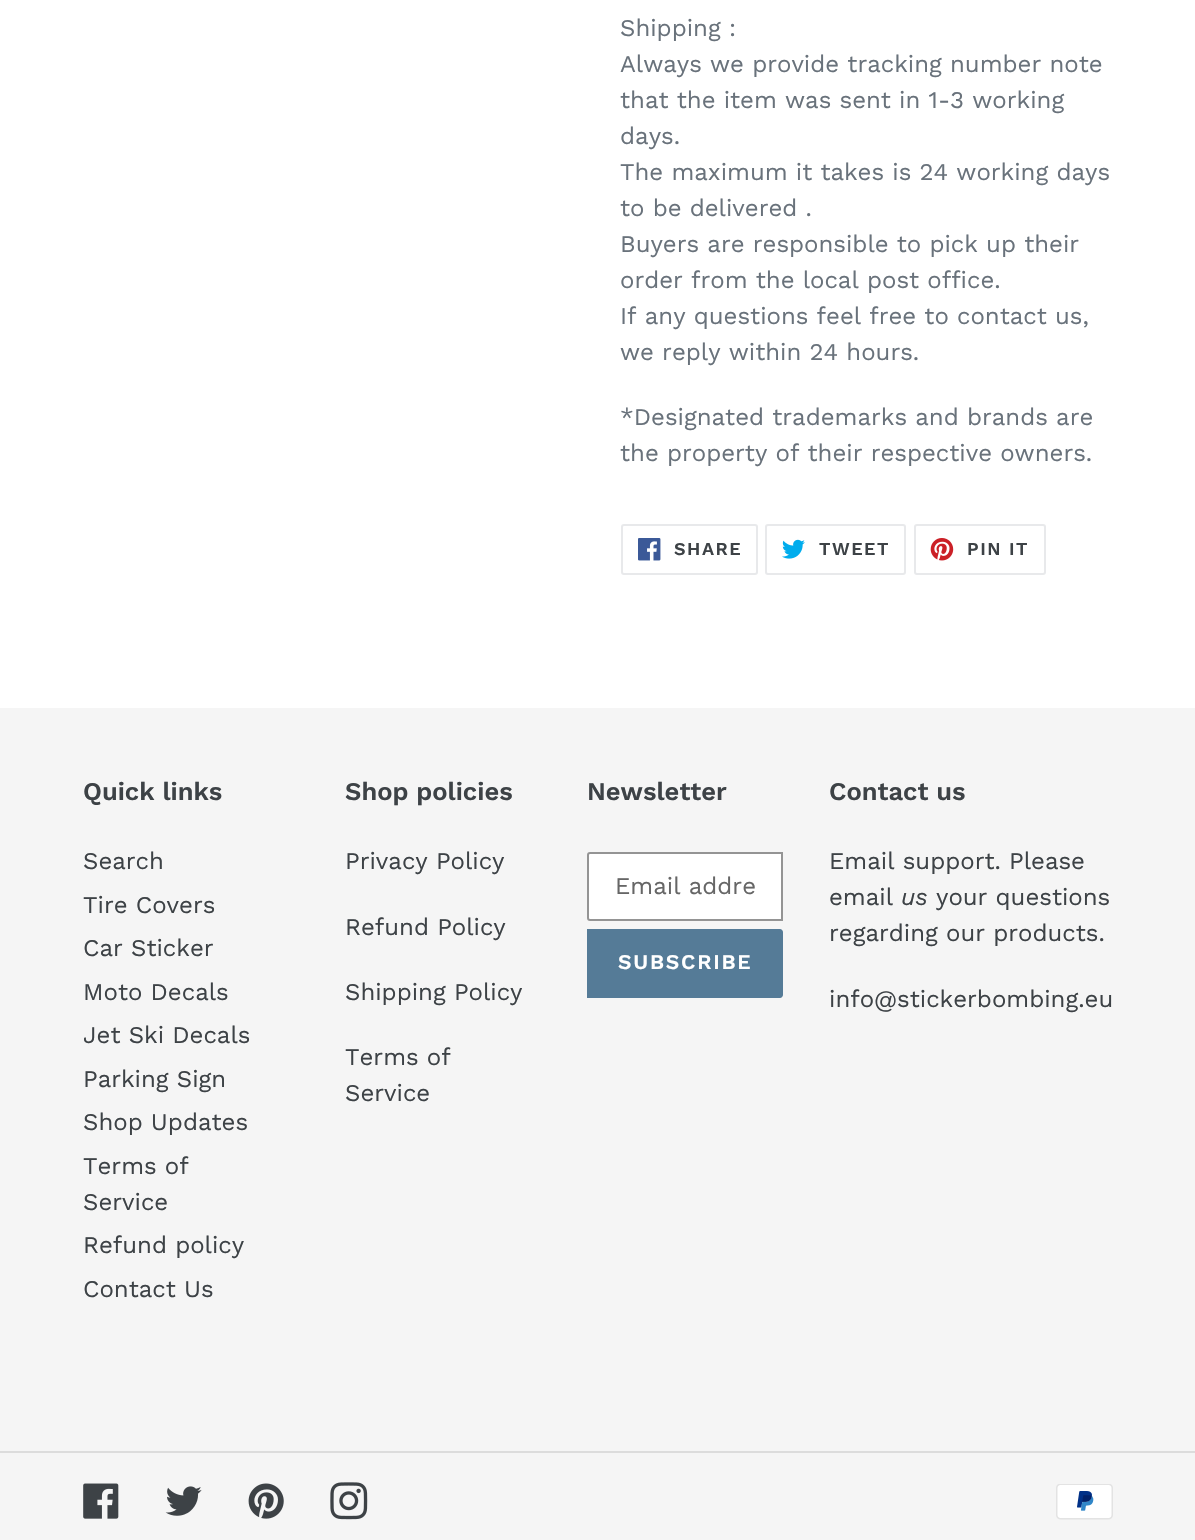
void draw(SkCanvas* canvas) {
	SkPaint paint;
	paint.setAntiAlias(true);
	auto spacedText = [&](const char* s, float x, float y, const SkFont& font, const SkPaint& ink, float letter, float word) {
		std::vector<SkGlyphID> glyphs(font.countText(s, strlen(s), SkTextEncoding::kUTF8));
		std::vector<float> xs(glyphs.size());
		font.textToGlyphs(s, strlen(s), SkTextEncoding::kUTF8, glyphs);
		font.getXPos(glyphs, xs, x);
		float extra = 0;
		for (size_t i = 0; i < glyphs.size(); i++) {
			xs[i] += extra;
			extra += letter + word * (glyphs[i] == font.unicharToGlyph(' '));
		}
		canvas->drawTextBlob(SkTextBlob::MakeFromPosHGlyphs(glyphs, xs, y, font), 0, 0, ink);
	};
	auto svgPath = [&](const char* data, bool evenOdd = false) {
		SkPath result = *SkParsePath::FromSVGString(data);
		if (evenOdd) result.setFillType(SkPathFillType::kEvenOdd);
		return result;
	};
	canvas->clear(0xffffffff);
	SkFont f1(fontMgr->matchFamilyStyle("Work Sans", SkFontStyle::Normal()), 24);
	f1.setSubpixel(true);
	paint.setColor(0xff69727b);
	canvas->drawString("Shipping :", 620, 36, f1, paint);
	canvas->drawString("Always we provide tracking number note", 620, 72, f1, paint);
	canvas->drawString("that the item was sent in 1-3 working", 620, 108, f1, paint);
	canvas->drawString("days.", 620, 144, f1, paint);
	canvas->drawString("The maximum it takes is 24 working days", 620, 180, f1, paint);
	canvas->drawString("to be delivered .", 620, 216, f1, paint);
	canvas->drawString("Buyers are responsible to pick up their", 620, 252, f1, paint);
	canvas->drawString("order from the local post office.", 620, 288, f1, paint);
	canvas->drawString("If any questions feel free to contact us,", 620, 324, f1, paint);
	canvas->drawString("we reply within 24 hours.", 620, 360, f1, paint);
	canvas->drawString("*Designated trademarks and brands are", 620, 425, f1, paint);
	canvas->drawString("the property of their respective owners.", 620, 461, f1, paint);
	paint.setStroke(true);
	paint.setStrokeWidth(2);
	paint.setColor(0xffe8e9eb);
	canvas->drawRoundRect(SkRect::MakeXYWH(622, 525, 135, 49), 2, 2, paint);
	canvas->drawImageRect(SkImages::DeferredFromEncodedData(SkData::MakeFromFileName("img1.png")), SkRect::MakeXYWH(638, 538, 23, 23), SkSamplingOptions());
	SkFont f2(fontMgr->matchFamilyStyle("Work Sans", SkFontStyle(600, SkFontStyle::kNormal_Width, SkFontStyle::kUpright_Slant)), 18);
	f2.setSubpixel(true);
	paint.setStroke(false);
	paint.setColor(0xff3d4246);
	spacedText("SHARE", 674, 555, f2, paint, 1.5, 0);
	paint.setStroke(true);
	paint.setColor(0xffe8e9eb);
	canvas->drawRoundRect(SkRect::MakeXYWH(766, 525, 139, 49), 2, 2, paint);
	canvas->drawImageRect(SkImages::DeferredFromEncodedData(SkData::MakeFromFileName("img2.png")), SkRect::MakeXYWH(782, 539, 23, 20), SkSamplingOptions());
	paint.setStroke(false);
	paint.setColor(0xff3d4246);
	spacedText("TWEET", 819, 555, f2, paint, 1.5, 0);
	paint.setStroke(true);
	paint.setColor(0xffe8e9eb);
	canvas->drawRoundRect(SkRect::MakeXYWH(915, 525, 130, 49), 2, 2, paint);
	canvas->drawImageRect(SkImages::DeferredFromEncodedData(SkData::MakeFromFileName("img3.png")), SkRect::MakeXYWH(930, 538, 24, 23), SkSamplingOptions());
	paint.setStroke(false);
	paint.setColor(0xff3d4246);
	spacedText("PIN IT", 967, 555, f2, paint, 1.5, 0);
	paint.setColor(0xfff5f5f5);
	canvas->drawRect(SkRect::MakeXYWH(0, 708, 1195, 832), paint);
	SkFont f3(fontMgr->matchFamilyStyle("Work Sans", SkFontStyle(600, SkFontStyle::kNormal_Width, SkFontStyle::kUpright_Slant)), 25.5);
	f3.setSubpixel(true);
	paint.setColor(0xff3d4246);
	canvas->drawString("Quick links", 83, 800, f3, paint);
	canvas->drawString("Search", 83, 869, f1, paint);
	canvas->drawString("Tire Covers", 83, 913, f1, paint);
	canvas->drawString("Car Sticker", 83, 956, f1, paint);
	canvas->drawString("Moto Decals", 83, 1000, f1, paint);
	canvas->drawString("Jet Ski Decals", 83, 1043, f1, paint);
	canvas->drawString("Parking Sign", 83, 1087, f1, paint);
	canvas->drawString("Shop Updates", 83, 1130, f1, paint);
	canvas->drawString("Terms of", 83, 1174, f1, paint);
	canvas->drawString("Service", 83, 1210, f1, paint);
	canvas->drawString("Refund policy", 83, 1253, f1, paint);
	canvas->drawString("Contact Us", 83, 1297, f1, paint);
	canvas->drawString("Shop policies", 345, 800, f3, paint);
	canvas->drawString("Privacy Policy", 345, 869, f1, paint);
	canvas->drawString("Refund Policy", 345, 935, f1, paint);
	canvas->drawString("Shipping Policy", 345, 1000, f1, paint);
	canvas->drawString("Terms of", 345, 1065, f1, paint);
	canvas->drawString("Service", 345, 1101, f1, paint);
	canvas->drawString("Newsletter", 587, 800, f3, paint);
	paint.setColor(0xffffffff);
	canvas->drawPath(svgPath("M590 853H782V920H590C589 920 588 919 588 918V855C588 854 589 853 590 853Z"), paint);
	paint.setStroke(true);
	paint.setColor(0xff949494);
	canvas->drawPath(svgPath("M590 853H782V920H590C589 920 588 919 588 918V855C588 854 589 853 590 853Z"), paint);
	paint.setStroke(false);
	paint.setColor(0xff666666);
	canvas->drawString("Email addre", 615, 894, f1, paint);
	paint.setColor(0xff557b97);
	canvas->drawPath(svgPath("M587 929H780C781.5 929 783 930.5 783 932V995C783 996.5 781.5 998 780 998H587Z"), paint);
	SkFont f4(fontMgr->matchFamilyStyle("Work Sans", SkFontStyle(600, SkFontStyle::kNormal_Width, SkFontStyle::kUpright_Slant)), 21);
	f4.setSubpixel(true);
	paint.setColor(0xffffffff);
	spacedText("SUBSCRIBE", 618, 969, f4, paint, 1.75, 0);
	paint.setColor(0xff3d4246);
	canvas->drawString("Contact us", 829, 800, f3, paint);
	canvas->drawString("Email support. Please", 829, 869, f1, paint);
	canvas->drawString("email", 829, 905, f1, paint);
	SkFont f5(fontMgr->matchFamilyStyle("Work Sans", SkFontStyle::Italic()), 24);
	f5.setSubpixel(true);
	canvas->drawString("us", 901, 905, f5, paint);
	canvas->drawString("your questions", 936, 905, f1, paint);
	canvas->drawString("regarding our products.", 829, 941, f1, paint);
	canvas->drawString("info@stickerbombing.eu", 829, 1007, f1, paint);
	paint.setColor(0xffdcdcdc);
	canvas->drawRect(SkRect::MakeXYWH(0, 1451, 1195, 2), paint);
	canvas->drawImageRect(SkImages::DeferredFromEncodedData(SkData::MakeFromFileName("img4.png")), SkRect::MakeXYWH(83, 1483, 36, 36), SkSamplingOptions());
	canvas->drawImageRect(SkImages::DeferredFromEncodedData(SkData::MakeFromFileName("img5.png")), SkRect::MakeXYWH(165, 1486, 37, 30), SkSamplingOptions());
	canvas->drawImageRect(SkImages::DeferredFromEncodedData(SkData::MakeFromFileName("img6.png")), SkRect::MakeXYWH(248, 1483, 36, 36), SkSamplingOptions());
	canvas->drawImageRect(SkImages::DeferredFromEncodedData(SkData::MakeFromFileName("img7.png")), SkRect::MakeXYWH(330, 1482, 38, 38), SkSamplingOptions());
	canvas->drawImageRect(SkImages::DeferredFromEncodedData(SkData::MakeFromFileName("img8.png")), SkRect::MakeXYWH(1056, 1484, 57, 36), SkSamplingOptions());
}
